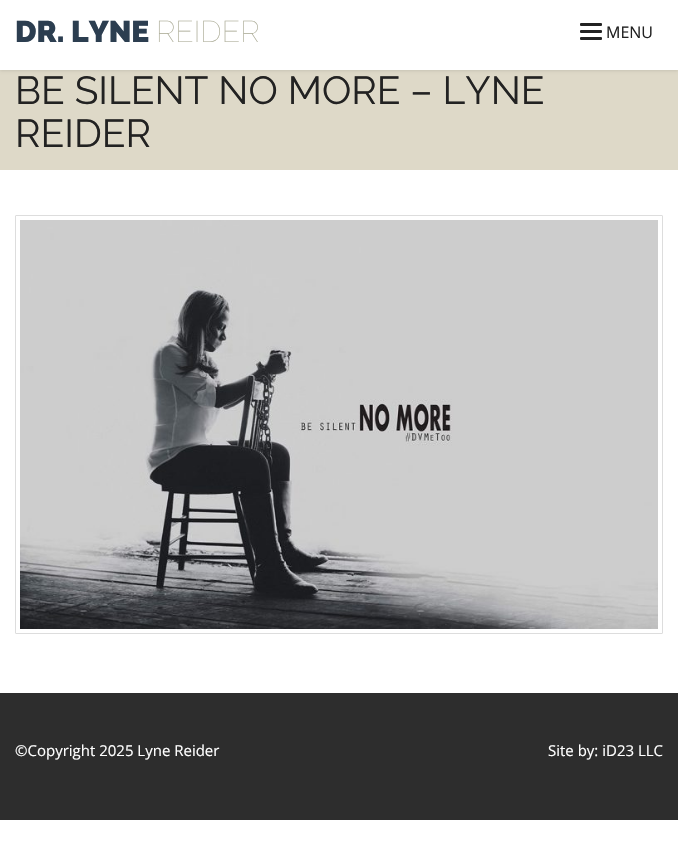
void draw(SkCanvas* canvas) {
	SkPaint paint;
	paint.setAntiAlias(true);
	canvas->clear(0xffffffff);
	paint.setColor(0xffded9c8);
	canvas->drawRect(SkRect::MakeXYWH(0, 70, 678, 100), paint);
	paint.setColor(0x1a000000);
	paint.setMaskFilter(SkMaskFilter::MakeBlur(kNormal_SkBlurStyle, 1.5));
	canvas->drawRect(SkRect::MakeXYWH(0, 1, 678, 70), paint);
	paint.setMaskFilter(nullptr);
	paint.setColor(0xffffffff);
	canvas->drawRect(SkRect::MakeXYWH(0, 0, 678, 70), paint);
	SkFont f1(fontMgr->matchFamilyStyle("Raleway", SkFontStyle(900, SkFontStyle::kNormal_Width, SkFontStyle::kUpright_Slant)), 30);
	f1.setSubpixel(true);
	paint.setColor(0xff2c3e50);
	canvas->drawString("DR. LYNE", 15, 42, f1, paint);
	SkFont f2(fontMgr->matchFamilyStyle("Raleway", SkFontStyle(100, SkFontStyle::kNormal_Width, SkFontStyle::kUpright_Slant)), 30);
	f2.setSubpixel(true);
	paint.setColor(0xffacac97);
	canvas->drawString("REIDER", 156, 42, f2, paint);
	paint.setColor(0xff222222);
	canvas->drawRoundRect(SkRect::MakeXYWH(580, 23, 22, 3), 1, 1, paint);
	canvas->drawRoundRect(SkRect::MakeXYWH(580, 30, 22, 3), 1, 1, paint);
	canvas->drawRoundRect(SkRect::MakeXYWH(580, 37, 22, 3), 1, 1, paint);
	SkFont f3(fontMgr->matchFamilyStyle("Open Sans", SkFontStyle::Normal()), 16);
	f3.setSubpixel(true);
	canvas->drawString("MENU", 606, 38, f3, paint);
	SkFont f4(fontMgr->matchFamilyStyle("Raleway", SkFontStyle::Normal()), 39);
	f4.setSubpixel(true);
	canvas->drawString("BE SILENT NO MORE – LYNE", 15, 104, f4, paint);
	canvas->drawString("REIDER", 15, 147, f4, paint);
	paint.setStroke(true);
	paint.setStrokeWidth(1);
	paint.setColor(0xffdddddd);
	canvas->drawRoundRect(SkRect::MakeXYWH(15.5, 215.5, 647, 418), 0.5, 0.5, paint);
	canvas->drawImageRect(SkImages::DeferredFromEncodedData(SkData::MakeFromFileName("img1.png")), SkRect::MakeXYWH(20, 220, 638, 409), SkSamplingOptions());
	paint.setStroke(false);
	paint.setColor(0xff2d2d2d);
	canvas->drawRect(SkRect::MakeXYWH(0, 693, 678, 127), paint);
	SkFont f5(fontMgr->matchFamilyStyle("Open Sans", SkFontStyle::Normal()), 15);
	f5.setSubpixel(true);
	paint.setColor(0xffffffff);
	canvas->drawString("©Copyright 2025 Lyne Reider", 15, 756, f5, paint);
	canvas->drawString("Site by: iD23 LLC", 548, 756, f5, paint);
}
